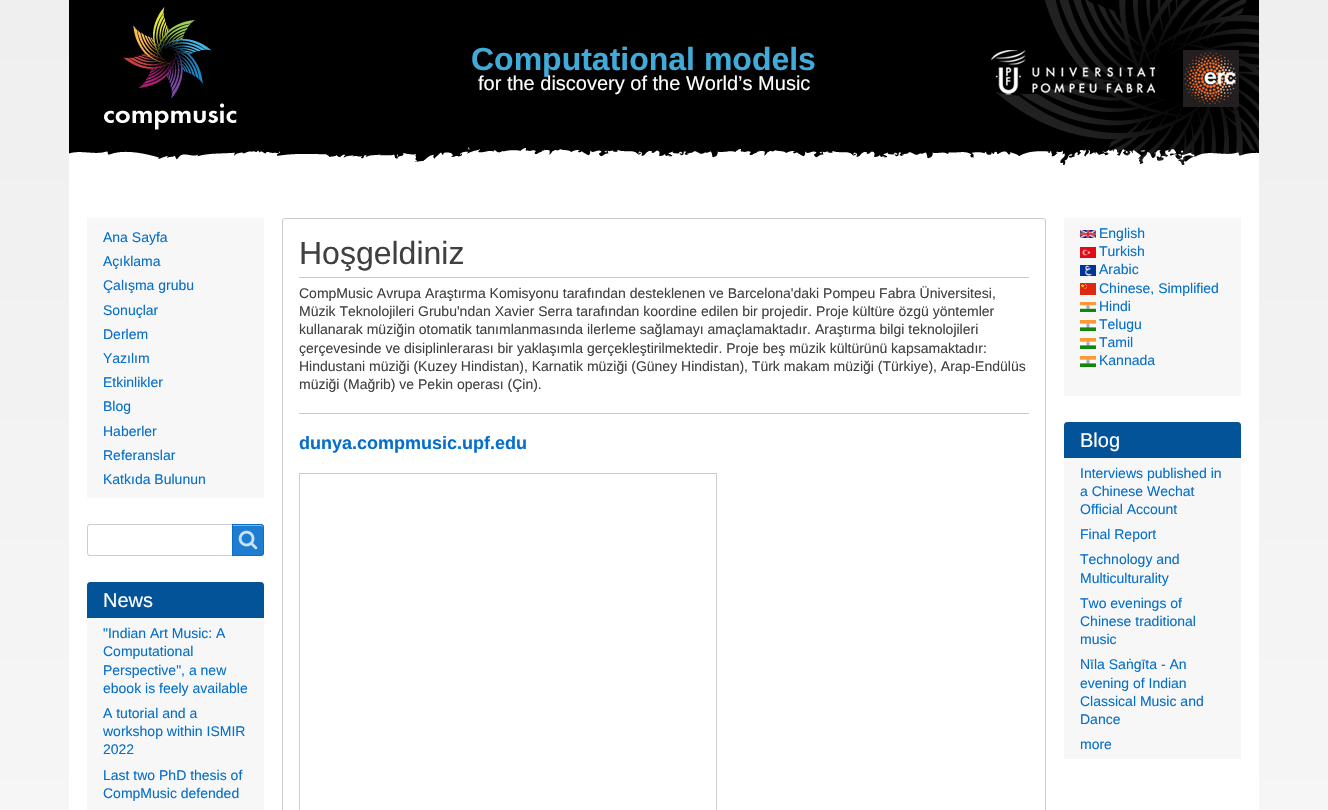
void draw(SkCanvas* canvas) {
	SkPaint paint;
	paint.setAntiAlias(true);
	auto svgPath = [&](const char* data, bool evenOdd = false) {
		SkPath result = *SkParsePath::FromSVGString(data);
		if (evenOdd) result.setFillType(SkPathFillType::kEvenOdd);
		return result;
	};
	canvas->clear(0xffffffff);
	{
		const SkColor colors[] = {0xffefefef, 0xfffafafa};
		const float stops[] = {0, 1};
		const SkPoint ends[] = {{664, 0}, {664, 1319}};
		paint.setShader(SkGradientShader::MakeLinear(ends, colors, stops, 2, SkTileMode::kClamp));
		paint.setAlpha(255);
	}
	canvas->drawRect(SkRect::MakeXYWH(0, 0, 1328, 810), paint);
	paint.setShader(nullptr);
	paint.setColor(0xffffffff);
	canvas->drawRect(SkRect::MakeXYWH(69, 165, 1190, 645), paint);
	canvas->drawImageRect(SkImages::DeferredFromEncodedData(SkData::MakeFromFileName("img1.png")), SkRect::MakeXYWH(69, 0, 1190, 165), SkSamplingOptions());
	canvas->drawImageRect(SkImages::DeferredFromEncodedData(SkData::MakeFromFileName("img2.png")), SkRect::MakeXYWH(104, 7, 133, 123), SkSamplingOptions());
	SkFont f1(fontMgr->matchFamilyStyle("Liberation Sans", SkFontStyle::Bold()), 32);
	f1.setSubpixel(true);
	paint.setColor(0xff40abd8);
	canvas->drawString("Computational models", 471, 70, f1, paint);
	SkFont f2(fontMgr->matchFamilyStyle("Liberation Sans", SkFontStyle::Normal()), 20);
	f2.setSubpixel(true);
	paint.setColor(0xffffffff);
	canvas->drawString("for the discovery of the World’s Music", 478, 90, f2, paint);
	canvas->drawImageRect(SkImages::DeferredFromEncodedData(SkData::MakeFromFileName("img3.png")), SkRect::MakeXYWH(991, 50, 164, 45), SkSamplingOptions());
	canvas->drawImageRect(SkImages::DeferredFromEncodedData(SkData::MakeFromFileName("img4.png")), SkRect::MakeXYWH(1183, 50, 56, 57), SkSamplingOptions());
	paint.setColor(0xfff7f7f7);
	canvas->drawRect(SkRect::MakeXYWH(87, 218, 177, 280), paint);
	SkFont f3(fontMgr->matchFamilyStyle("Liberation Sans", SkFontStyle::Normal()), 14);
	f3.setSubpixel(true);
	paint.setColor(0xff056fcb);
	canvas->drawString("Ana Sayfa", 103, 242, f3, paint);
	canvas->drawString("Açıklama", 103, 266, f3, paint);
	canvas->drawString("Çalışma grubu", 103, 290, f3, paint);
	canvas->drawString("Sonuçlar", 103, 315, f3, paint);
	canvas->drawString("Derlem", 103, 339, f3, paint);
	canvas->drawString("Yazılım", 103, 363, f3, paint);
	canvas->drawString("Etkinlikler", 103, 387, f3, paint);
	canvas->drawString("Blog", 103, 411, f3, paint);
	canvas->drawString("Haberler", 103, 436, f3, paint);
	canvas->drawString("Referanslar", 103, 460, f3, paint);
	canvas->drawString("Katkıda Bulunun", 103, 484, f3, paint);
	paint.setColor(0xfff7f7f7);
	canvas->drawRect(SkRect::MakeXYWH(87, 524, 177, 32), paint);
	paint.setColor(0xffffffff);
	canvas->drawRoundRect(SkRect::MakeXYWH(87.5, 524.5, 176, 31), 2.5, 2.5, paint);
	paint.setStroke(true);
	paint.setStrokeWidth(1);
	paint.setColor(0xffcccccc);
	canvas->drawRoundRect(SkRect::MakeXYWH(87.5, 524.5, 176, 31), 2.5, 2.5, paint);
	paint.setStroke(false);
	paint.setColor(0xe6056fcb);
	canvas->drawPath(svgPath("M232 524H261C262.5 524 264 525.5 264 527V553C264 554.5 262.5 556 261 556H232Z"), paint);
	canvas->drawImageRect(SkImages::DeferredFromEncodedData(SkData::MakeFromFileName("img5.png")), SkRect::MakeXYWH(238, 530, 20, 20), SkSamplingOptions());
	paint.setColor(0xff83b8e5);
	canvas->drawPath(svgPath("M233 526H261C262 526 263 527 263 528V527C263 526 262 525 261 525H233Z"), paint);
	paint.setStroke(true);
	paint.setColor(0xe6056fcb);
	canvas->drawPath(svgPath("M232.5 524.5H261C262.5 524.5 263.5 525.5 263.5 527V553C263.5 554.5 262.5 555.5 261 555.5H232.5Z"), paint);
	paint.setStroke(false);
	paint.setColor(0xfff7f7f7);
	canvas->drawRect(SkRect::MakeXYWH(87, 582, 177, 228), paint);
	paint.setColor(0xff035399);
	canvas->drawPath(svgPath("M90 582H261C262.5 582 264 583.5 264 585V618H87V585C87 583.5 88.5 582 90 582Z"), paint);
	paint.setColor(0xffffffff);
	canvas->drawString("News", 103, 607, f2, paint);
	paint.setColor(0xff056fcb);
	canvas->drawString("\"Indian Art Music: A", 103, 638, f3, paint);
	canvas->drawString("Computational", 103, 656, f3, paint);
	canvas->drawString("Perspective\", a new", 103, 675, f3, paint);
	canvas->drawString("ebook is feely available", 103, 693, f3, paint);
	canvas->drawString("A tutorial and a", 103, 718, f3, paint);
	canvas->drawString("workshop within ISMIR", 103, 736, f3, paint);
	canvas->drawString("2022", 103, 754, f3, paint);
	canvas->drawString("Last two PhD thesis of", 103, 780, f3, paint);
	canvas->drawString("CompMusic defended", 103, 798, f3, paint);
	paint.setStroke(true);
	paint.setColor(0xffcccccc);
	canvas->drawRoundRect(SkRect::MakeXYWH(282.5, 218.5, 763, 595), 2.5, 2.5, paint);
	paint.setStroke(false);
	canvas->drawRect(SkRect::MakeXYWH(299, 277, 730, 1), paint);
	SkFont f4(fontMgr->matchFamilyStyle("Liberation Sans", SkFontStyle::Normal()), 32);
	f4.setSubpixel(true);
	paint.setColor(0xff404040);
	canvas->drawString("Hoşgeldiniz", 299, 264, f4, paint);
	canvas->drawString("CompMusic Avrupa Araştırma Komisyonu tarafından desteklenen ve Barcelona'daki Pompeu Fabra Üniversitesi,", 299, 298, f3, paint);
	canvas->drawString("Müzik Teknolojileri Grubu'ndan Xavier Serra tarafından koordine edilen bir projedir. Proje kültüre özgü yöntemler", 299, 316, f3, paint);
	canvas->drawString("kullanarak müziğin otomatik tanımlanmasında ilerleme sağlamayı amaçlamaktadır. Araştırma bilgi teknolojileri", 299, 334, f3, paint);
	canvas->drawString("çerçevesinde ve disiplinlerarası bir yaklaşımla gerçekleştirilmektedir. Proje beş müzik kültürünü kapsamaktadır:", 299, 353, f3, paint);
	canvas->drawString("Hindustani müziği (Kuzey Hindistan), Karnatik müziği (Güney Hindistan), Türk makam müziği (Türkiye), Arap-Endülüs", 299, 371, f3, paint);
	canvas->drawString("müziği (Mağrib) ve Pekin operası (Çin).", 299, 389, f3, paint);
	paint.setColor(0xffcccccc);
	canvas->drawRect(SkRect::MakeXYWH(299, 413, 730, 1), paint);
	SkFont f5(fontMgr->matchFamilyStyle("Liberation Sans", SkFontStyle::Bold()), 18);
	f5.setSubpixel(true);
	paint.setColor(0xff056fcb);
	canvas->drawString("dunya.compmusic.upf.edu", 299, 449, f5, paint);
	paint.setColor(0xffcccccc);
	canvas->drawRect(SkRect::MakeXYWH(299, 473, 418, 1), paint);
	canvas->drawRect(SkRect::MakeXYWH(716, 473, 1, 337), paint);
	canvas->drawRect(SkRect::MakeXYWH(299, 473, 1, 337), paint);
	paint.setColor(0xfff7f7f7);
	canvas->drawRect(SkRect::MakeXYWH(1064, 218, 177, 178), paint);
	canvas->drawImageRect(SkImages::DeferredFromEncodedData(SkData::MakeFromFileName("img6.png")), SkRect::MakeXYWH(1080, 230, 16, 8), SkSamplingOptions());
	paint.setColor(0xff056fcb);
	canvas->drawString("English", 1099, 238, f3, paint);
	canvas->drawImageRect(SkImages::DeferredFromEncodedData(SkData::MakeFromFileName("img7.png")), SkRect::MakeXYWH(1080, 247, 16, 11), SkSamplingOptions());
	canvas->drawString("Turkish", 1099, 256, f3, paint);
	canvas->drawImageRect(SkImages::DeferredFromEncodedData(SkData::MakeFromFileName("img8.png")), SkRect::MakeXYWH(1080, 265, 16, 11), SkSamplingOptions());
	canvas->drawString("Arabic", 1099, 274, f3, paint);
	canvas->drawImageRect(SkImages::DeferredFromEncodedData(SkData::MakeFromFileName("img9.png")), SkRect::MakeXYWH(1080, 283, 16, 12), SkSamplingOptions());
	canvas->drawString("Chinese, Simplified", 1099, 293, f3, paint);
	canvas->drawImageRect(SkImages::DeferredFromEncodedData(SkData::MakeFromFileName("img10.png")), SkRect::MakeXYWH(1080, 302, 16, 10), SkSamplingOptions());
	canvas->drawString("Hindi", 1099, 311, f3, paint);
	canvas->drawImageRect(SkImages::DeferredFromEncodedData(SkData::MakeFromFileName("img11.png")), SkRect::MakeXYWH(1080, 320, 16, 11), SkSamplingOptions());
	canvas->drawString("Telugu", 1099, 329, f3, paint);
	canvas->drawImageRect(SkImages::DeferredFromEncodedData(SkData::MakeFromFileName("img11.png")), SkRect::MakeXYWH(1080, 338, 16, 11), SkSamplingOptions());
	canvas->drawString("Tamil", 1099, 347, f3, paint);
	canvas->drawImageRect(SkImages::DeferredFromEncodedData(SkData::MakeFromFileName("img11.png")), SkRect::MakeXYWH(1080, 356, 16, 11), SkSamplingOptions());
	canvas->drawString("Kannada", 1099, 365, f3, paint);
	paint.setColor(0xfff7f7f7);
	canvas->drawRect(SkRect::MakeXYWH(1064, 422, 177, 337), paint);
	paint.setColor(0xff035399);
	canvas->drawPath(svgPath("M1067 422H1238C1239.5 422 1241 423.5 1241 425V458H1064V425C1064 423.5 1065.5 422 1067 422Z"), paint);
	paint.setColor(0xffffffff);
	canvas->drawString("Blog", 1080, 447, f2, paint);
	paint.setColor(0xff056fcb);
	canvas->drawString("Interviews published in", 1080, 478, f3, paint);
	canvas->drawString("a Chinese Wechat", 1080, 496, f3, paint);
	canvas->drawString("Official Account", 1080, 514, f3, paint);
	canvas->drawString("Final Report", 1080, 539, f3, paint);
	canvas->drawString("Technology and", 1080, 564, f3, paint);
	canvas->drawString("Multiculturality", 1080, 583, f3, paint);
	canvas->drawString("Two evenings of", 1080, 608, f3, paint);
	canvas->drawString("Chinese traditional", 1080, 626, f3, paint);
	canvas->drawString("music", 1080, 644, f3, paint);
	canvas->drawString("Nīla Saṅgīta - An", 1080, 669, f3, paint);
	canvas->drawString("evening of Indian", 1080, 688, f3, paint);
	canvas->drawString("Classical Music and", 1080, 706, f3, paint);
	canvas->drawString("Dance", 1080, 724, f3, paint);
	canvas->drawString("more", 1080, 749, f3, paint);
}
